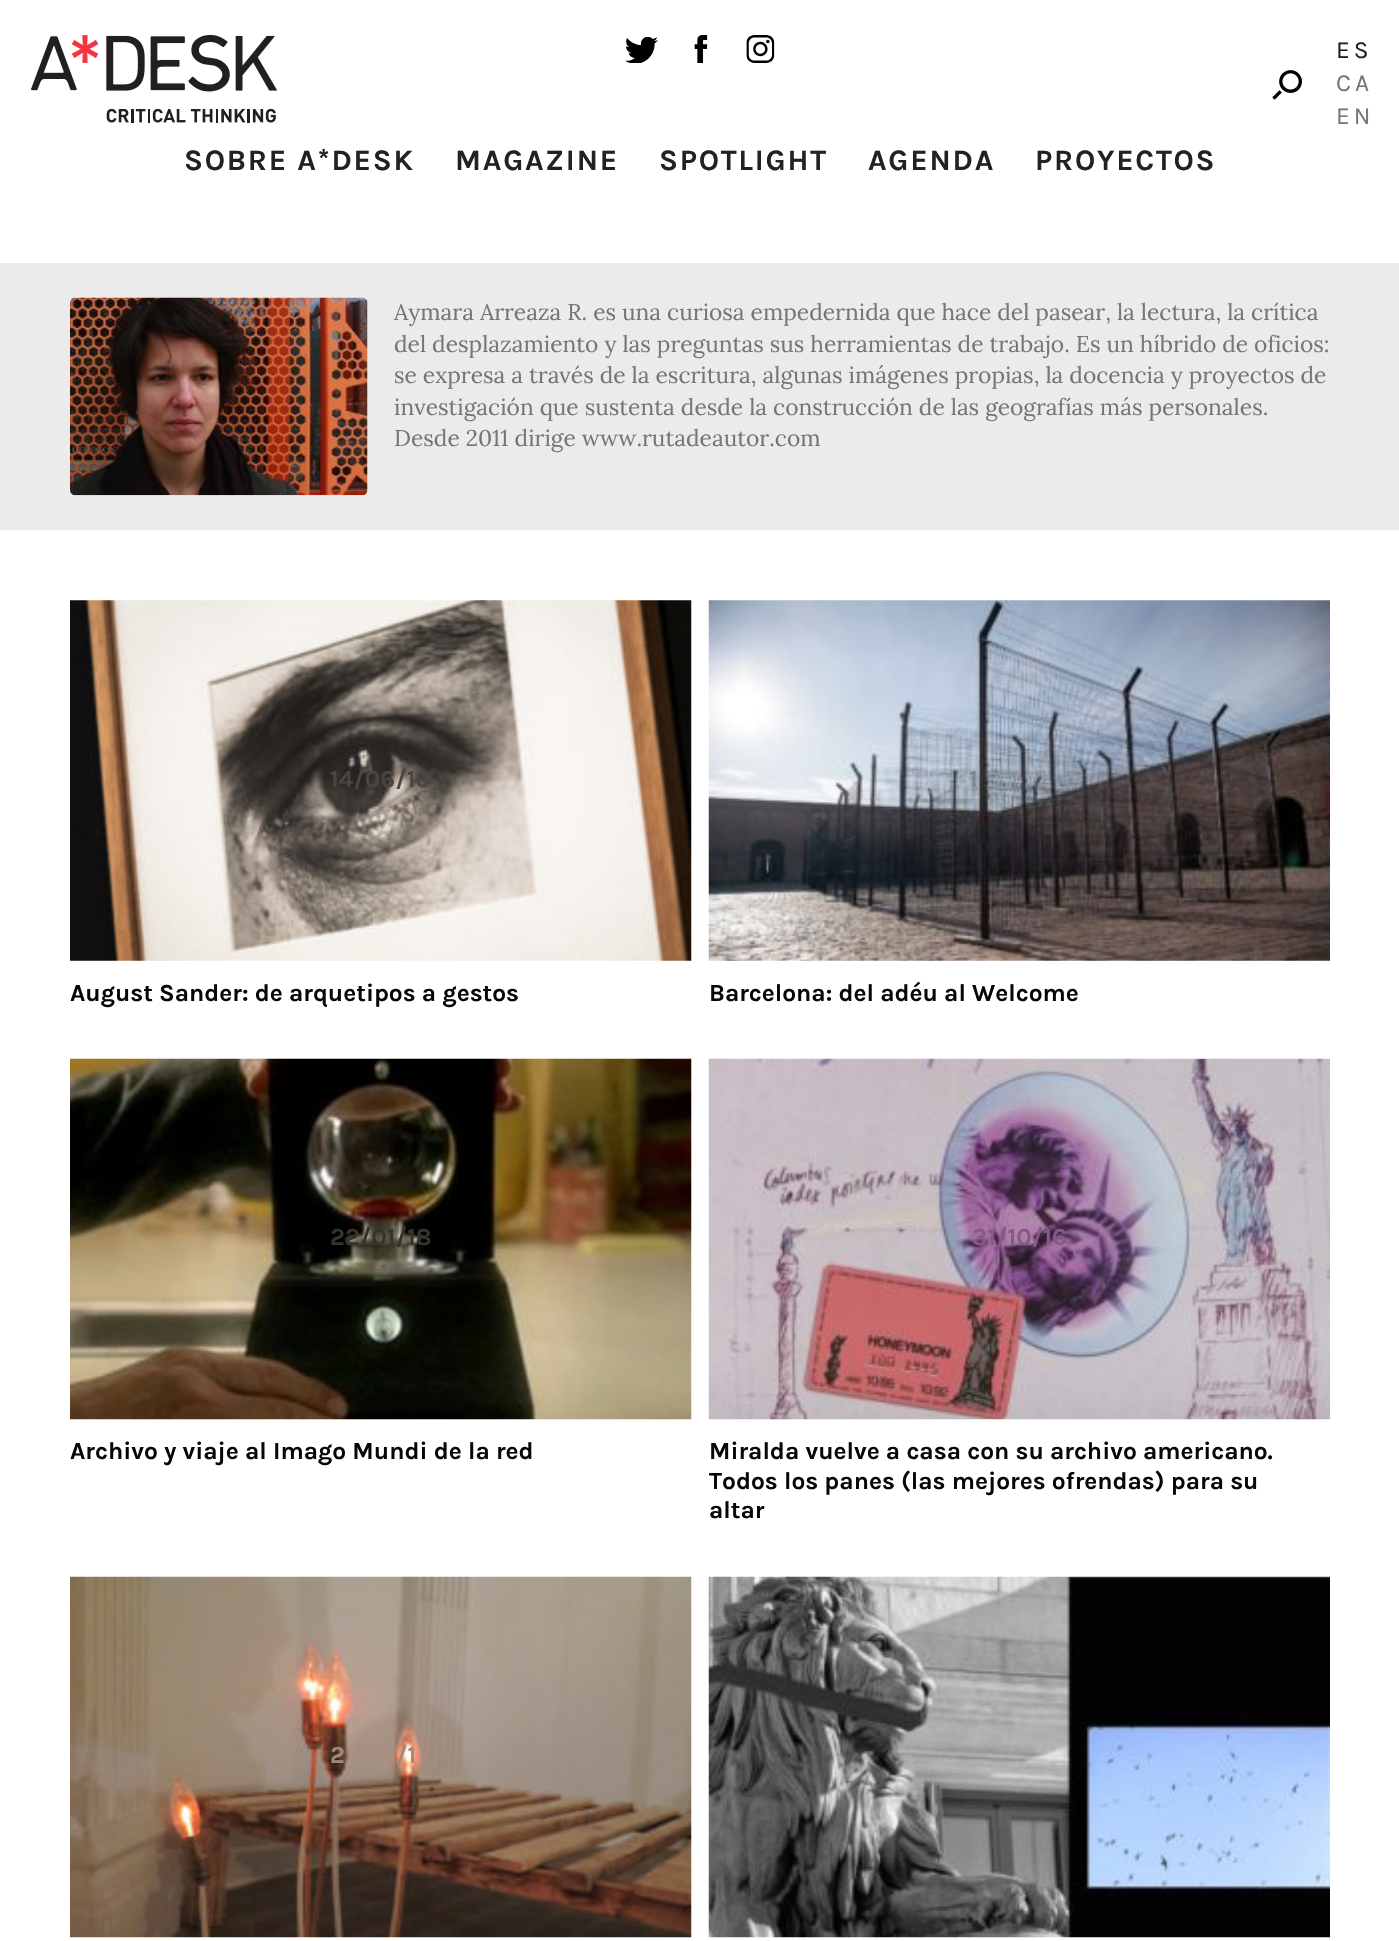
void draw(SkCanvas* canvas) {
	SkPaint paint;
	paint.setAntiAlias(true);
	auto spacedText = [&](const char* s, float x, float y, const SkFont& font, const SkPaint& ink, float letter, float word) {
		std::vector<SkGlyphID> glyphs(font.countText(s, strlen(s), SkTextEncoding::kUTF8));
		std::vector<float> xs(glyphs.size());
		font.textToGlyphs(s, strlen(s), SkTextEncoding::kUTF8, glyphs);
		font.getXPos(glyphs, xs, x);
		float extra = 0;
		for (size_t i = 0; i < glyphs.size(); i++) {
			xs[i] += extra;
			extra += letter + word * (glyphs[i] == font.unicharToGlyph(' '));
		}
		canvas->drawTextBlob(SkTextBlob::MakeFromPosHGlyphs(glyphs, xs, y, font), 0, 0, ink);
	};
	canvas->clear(0xffffffff);
	canvas->drawImageRect(SkImages::DeferredFromEncodedData(SkData::MakeFromFileName("img1.png")), SkRect::MakeXYWH(31, 35, 246, 88), SkSamplingOptions());
	canvas->drawImageRect(SkImages::DeferredFromEncodedData(SkData::MakeFromFileName("img2.png")), SkRect::MakeXYWH(625, 37, 33, 26), SkSamplingOptions());
	canvas->drawImageRect(SkImages::DeferredFromEncodedData(SkData::MakeFromFileName("img3.png")), SkRect::MakeXYWH(694, 35, 14, 28), SkSamplingOptions());
	canvas->drawImageRect(SkImages::DeferredFromEncodedData(SkData::MakeFromFileName("img4.png")), SkRect::MakeXYWH(746, 35, 29, 28), SkSamplingOptions());
	canvas->drawImageRect(SkImages::DeferredFromEncodedData(SkData::MakeFromFileName("img5.png")), SkRect::MakeXYWH(1272, 70, 30, 30), SkSamplingOptions());
	SkFont f1(fontMgr->matchFamilyStyle("Karla", SkFontStyle::Normal()), 24.5);
	f1.setSubpixel(true);
	paint.setColor(0xff222222);
	spacedText("ES", 1336, 58, f1, paint, 4, 0);
	paint.setColor(0xff767676);
	spacedText("CA", 1336, 91, f1, paint, 4, 0);
	spacedText("EN", 1336, 124, f1, paint, 4, 0);
	SkFont f2(fontMgr->matchFamilyStyle("Karla", SkFontStyle::Bold()), 29.75);
	f2.setSubpixel(true);
	paint.setColor(0xff222222);
	spacedText("SOBRE A*DESK", 184, 170, f2, paint, 1.75, 0);
	spacedText("MAGAZINE", 455, 170, f2, paint, 1.75, 0);
	spacedText("SPOTLIGHT", 659, 170, f2, paint, 1.75, 0);
	spacedText("AGENDA", 868, 170, f2, paint, 1.75, 0);
	spacedText("PROYECTOS", 1035, 170, f2, paint, 1.75, 0);
	paint.setColor(0xffebebeb);
	canvas->drawRect(SkRect::MakeXYWH(0, 263, 1399, 267), paint);
	canvas->drawImageRect(SkImages::DeferredFromEncodedData(SkData::MakeFromFileName("img6.png")), SkRect::MakeXYWH(70, 297, 298, 199), SkSamplingOptions());
	SkFont f3(fontMgr->matchFamilyStyle("Lora", SkFontStyle::Normal()), 22.75);
	f3.setSubpixel(true);
	paint.setColor(0xff767676);
	canvas->drawString("Aymara Arreaza R. es una curiosa empedernida que hace del pasear, la lectura, la crítica", 394, 320, f3, paint);
	canvas->drawString("del desplazamiento y las preguntas sus herramientas de trabajo. Es un híbrido de oficios:", 394, 352, f3, paint);
	canvas->drawString("se expresa a través de la escritura, algunas imágenes propias, la docencia y proyectos de", 394, 383, f3, paint);
	canvas->drawString("investigación que sustenta desde la construcción de las geografías más personales.", 394, 415, f3, paint);
	canvas->drawString("Desde 2011 dirige www.rutadeautor.com", 394, 446, f3, paint);
	canvas->drawImageRect(SkImages::DeferredFromEncodedData(SkData::MakeFromFileName("img7.png")), SkRect::MakeXYWH(70, 600, 622, 361), SkSamplingOptions());
	SkFont f4(fontMgr->matchFamilyStyle("Karla", SkFontStyle::Bold()), 24.5);
	f4.setSubpixel(true);
	paint.setColor(0xff4b4541);
	canvas->drawString("14/06/19", 330, 787, f4, paint);
	paint.setColor(0xff070707);
	canvas->drawString("August Sander: de arquetipos a gestos", 70, 1001, f4, paint);
	canvas->drawImageRect(SkImages::DeferredFromEncodedData(SkData::MakeFromFileName("img8.png")), SkRect::MakeXYWH(708, 600, 622, 361), SkSamplingOptions());
	paint.setColor(0xff7e8791);
	canvas->drawString("1", 969, 787, f4, paint);
	paint.setColor(0xff070707);
	canvas->drawString("Barcelona: del adéu al Welcome", 709, 1001, f4, paint);
	canvas->drawImageRect(SkImages::DeferredFromEncodedData(SkData::MakeFromFileName("img9.png")), SkRect::MakeXYWH(70, 1058, 622, 362), SkSamplingOptions());
	paint.setColor(0xff35332a);
	canvas->drawString("22/01/18", 330, 1245, f4, paint);
	paint.setColor(0xff070707);
	canvas->drawString("Archivo y viaje al Imago Mundi de la red", 70, 1459, f4, paint);
	canvas->drawImageRect(SkImages::DeferredFromEncodedData(SkData::MakeFromFileName("img10.png")), SkRect::MakeXYWH(708, 1058, 622, 362), SkSamplingOptions());
	paint.setColor(0xff855b85);
	canvas->drawString("31/10/16", 972, 1245, f4, paint);
	paint.setColor(0xff070707);
	canvas->drawString("Miralda vuelve a casa con su archivo americano.", 709, 1459, f4, paint);
	canvas->drawString("Todos los panes (las mejores ofrendas) para su", 709, 1489, f4, paint);
	canvas->drawString("altar", 709, 1518, f4, paint);
	canvas->drawImageRect(SkImages::DeferredFromEncodedData(SkData::MakeFromFileName("img11.png")), SkRect::MakeXYWH(70, 1576, 622, 362), SkSamplingOptions());
	paint.setColor(0xffa78876);
	canvas->drawString("2", 330, 1763, f4, paint);
	canvas->drawString("/1", 396, 1763, f4, paint);
	canvas->drawImageRect(SkImages::DeferredFromEncodedData(SkData::MakeFromFileName("img12.png")), SkRect::MakeXYWH(708, 1576, 622, 362), SkSamplingOptions());
}
